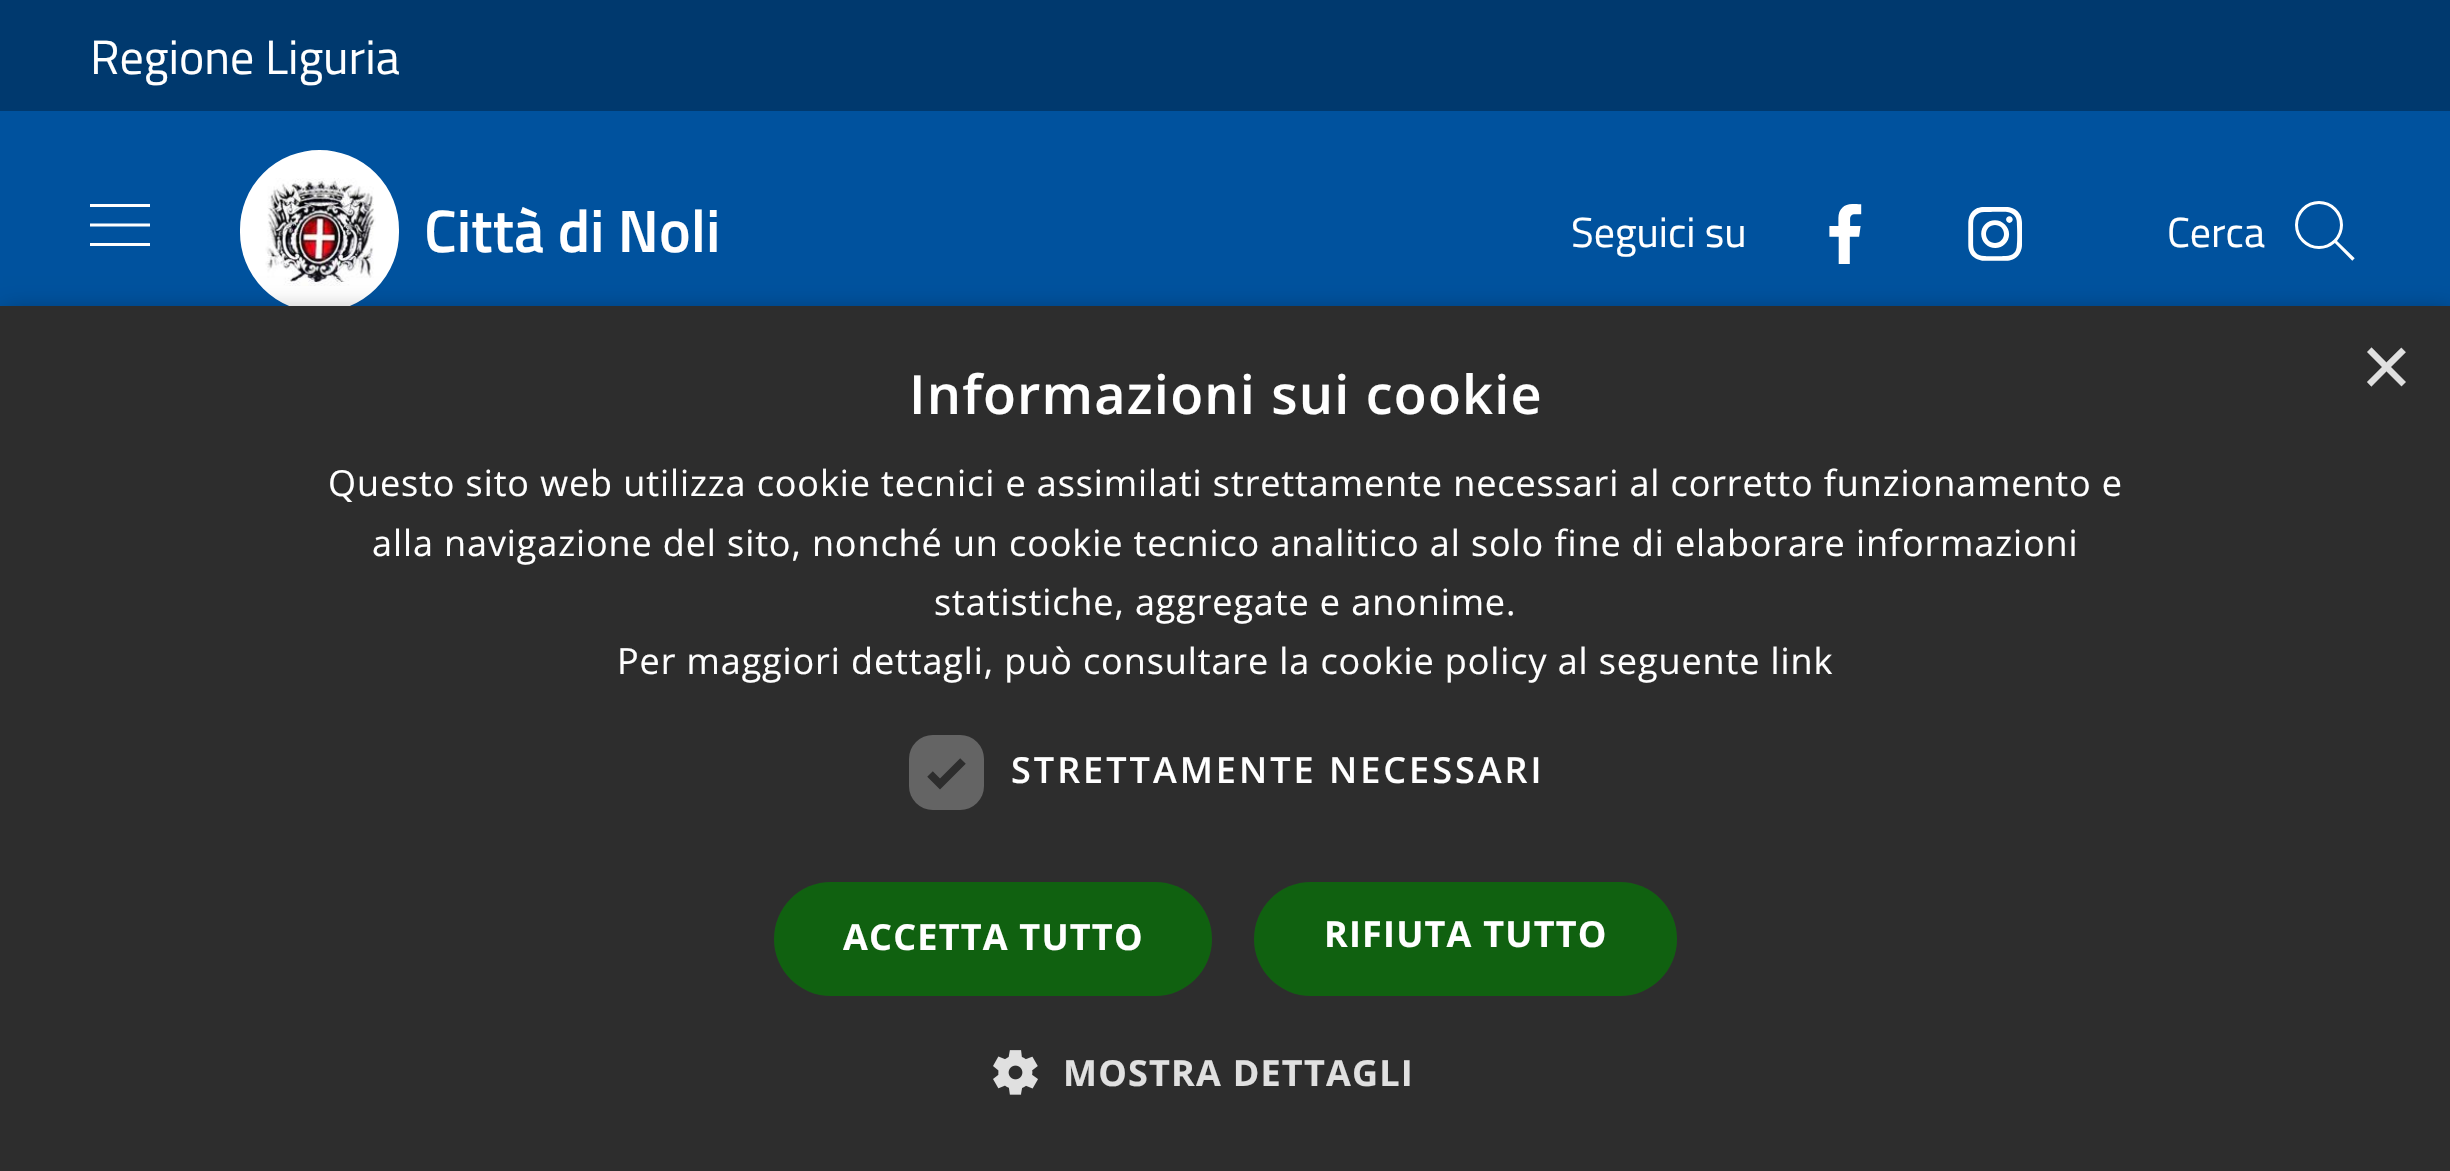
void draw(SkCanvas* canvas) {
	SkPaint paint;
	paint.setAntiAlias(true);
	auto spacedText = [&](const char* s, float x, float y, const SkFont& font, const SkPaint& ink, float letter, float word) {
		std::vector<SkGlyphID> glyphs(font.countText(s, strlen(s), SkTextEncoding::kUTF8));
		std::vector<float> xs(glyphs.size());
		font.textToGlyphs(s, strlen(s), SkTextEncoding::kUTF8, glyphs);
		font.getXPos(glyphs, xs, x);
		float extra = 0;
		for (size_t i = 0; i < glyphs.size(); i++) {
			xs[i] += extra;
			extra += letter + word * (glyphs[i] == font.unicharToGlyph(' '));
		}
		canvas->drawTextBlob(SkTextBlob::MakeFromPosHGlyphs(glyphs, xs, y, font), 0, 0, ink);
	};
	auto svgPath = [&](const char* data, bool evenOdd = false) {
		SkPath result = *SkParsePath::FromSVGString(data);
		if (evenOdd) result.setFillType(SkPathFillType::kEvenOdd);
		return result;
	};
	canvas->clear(0xff00396e);
	SkFont f1(fontMgr->matchFamilyStyle("Titillium Web", SkFontStyle::Normal()), 48);
	f1.setSubpixel(true);
	paint.setColor(0xffffffff);
	canvas->drawString("Regione Liguria", 90, 74, f1, paint);
	paint.setColor(0xff00529e);
	canvas->drawRect(SkRect::MakeXYWH(0, 111, 2450, 195), paint);
	canvas->drawImageRect(SkImages::DeferredFromEncodedData(SkData::MakeFromFileName("img1.png")), SkRect::MakeXYWH(90, 204, 60, 42), SkSamplingOptions());
	paint.setColor(0xffffffff);
	canvas->drawRoundRect(SkRect::MakeXYWH(241.5, 151.5, 156, 159), 78, 78, paint);
	paint.setStroke(true);
	paint.setStrokeWidth(3);
	canvas->drawRoundRect(SkRect::MakeXYWH(241.5, 151.5, 156, 159), 78, 78, paint);
	canvas->drawImageRect(SkImages::DeferredFromEncodedData(SkData::MakeFromFileName("img2.png")), SkRect::MakeXYWH(265, 178, 111, 108), SkSamplingOptions());
	SkFont f2(fontMgr->matchFamilyStyle("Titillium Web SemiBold", SkFontStyle(600, SkFontStyle::kNormal_Width, SkFontStyle::kUpright_Slant)), 60);
	f2.setSubpixel(true);
	paint.setStroke(false);
	canvas->drawString("Città di Noli", 424, 252, f2, paint);
	SkFont f3(fontMgr->matchFamilyStyle("Titillium Web", SkFontStyle::Normal()), 42);
	f3.setSubpixel(true);
	canvas->drawString("Seguici su", 1571, 247, f3, paint);
	canvas->drawImageRect(SkImages::DeferredFromEncodedData(SkData::MakeFromFileName("img3.png")), SkRect::MakeXYWH(1829, 204, 33, 60), SkSamplingOptions());
	canvas->drawImageRect(SkImages::DeferredFromEncodedData(SkData::MakeFromFileName("img4.png")), SkRect::MakeXYWH(1968, 207, 54, 54), SkSamplingOptions());
	canvas->drawString("Cerca", 2167, 247, f3, paint);
	canvas->drawImageRect(SkImages::DeferredFromEncodedData(SkData::MakeFromFileName("img5.png")), SkRect::MakeXYWH(2295, 201, 60, 60), SkSamplingOptions());
	paint.setColor(0x59000000);
	paint.setMaskFilter(SkMaskFilter::MakeBlur(kNormal_SkBlurStyle, 12));
	canvas->drawRect(SkRect::MakeXYWH(3, 312, 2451, 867), paint);
	paint.setMaskFilter(nullptr);
	paint.setColor(0xff2d2d2d);
	canvas->drawRect(SkRect::MakeXYWH(0, 306, 2450, 865), paint);
	SkFont f4(fontMgr->matchFamilyStyle("Liberation Sans", SkFontStyle::Normal()), 87);
	f4.setSubpixel(true);
	paint.setColor(0xffe0e0e0);
	canvas->drawString("×", 2361, 396, f4, paint);
	SkFont f5(fontMgr->matchFamilyStyle("Open Sans", SkFontStyle(600, SkFontStyle::kNormal_Width, SkFontStyle::kUpright_Slant)), 54);
	f5.setSubpixel(true);
	paint.setColor(0xffffffff);
	spacedText("Informazioni sui cookie", 909, 414, f5, paint, 1.2, 0);
	SkFont f6(fontMgr->matchFamilyStyle("Open Sans", SkFontStyle::Normal()), 36);
	f6.setSubpixel(true);
	spacedText("Questo sito web utilizza cookie tecnici e assimilati strettamente necessari al corretto funzionamento e", 328, 496, f6, paint, 0.9, 0);
	spacedText("alla navigazione del sito, nonché un cookie tecnico analitico al solo fine di elaborare informazioni", 372, 556, f6, paint, 0.9, 0);
	spacedText("statistiche, aggregate e anonime.", 934, 615, f6, paint, 0.9, 0);
	spacedText("Per maggiori dettagli, può consultare la cookie policy al seguente link", 617, 674, f6, paint, 0.9, 0);
	paint.setColor(0xff646464);
	canvas->drawRoundRect(SkRect::MakeXYWH(909, 735, 75, 75), 24, 24, paint);
	paint.setStroke(true);
	paint.setStrokeWidth(7.9);
	paint.setColor(0xff2d2d2d);
	canvas->drawPath(svgPath("M930 774L940 784L963 761"), paint);
	SkFont f7(fontMgr->matchFamilyStyle("Open Sans", SkFontStyle(600, SkFontStyle::kNormal_Width, SkFontStyle::kUpright_Slant)), 36);
	f7.setSubpixel(true);
	paint.setStroke(false);
	paint.setColor(0xffffffff);
	spacedText("STRETTAMENTE NECESSARI", 1011, 783, f7, paint, 3, 0);
	paint.setColor(0xff106110);
	canvas->drawRoundRect(SkRect::MakeXYWH(774, 882, 438, 114), 57, 57, paint);
	SkFont f8(fontMgr->matchFamilyStyle("Open Sans", SkFontStyle::Bold()), 36);
	f8.setSubpixel(true);
	paint.setColor(0xffffffff);
	spacedText("ACCETTA TUTTO", 843, 950, f8, paint, 1.2, 0);
	paint.setColor(0xff106110);
	canvas->drawRoundRect(SkRect::MakeXYWH(1254, 882, 423, 114), 57, 57, paint);
	paint.setColor(0xffffffff);
	spacedText("RIFIUTA TUTTO", 1324, 947, f8, paint, 1.2, 0);
	canvas->drawImageRect(SkImages::DeferredFromEncodedData(SkData::MakeFromFileName("img6.png")), SkRect::MakeXYWH(993, 1050, 45, 45), SkSamplingOptions());
	paint.setColor(0xffe0e0e0);
	spacedText("MOSTRA DETTAGLI", 1063, 1086, f8, paint, 1.2, 0);
}
